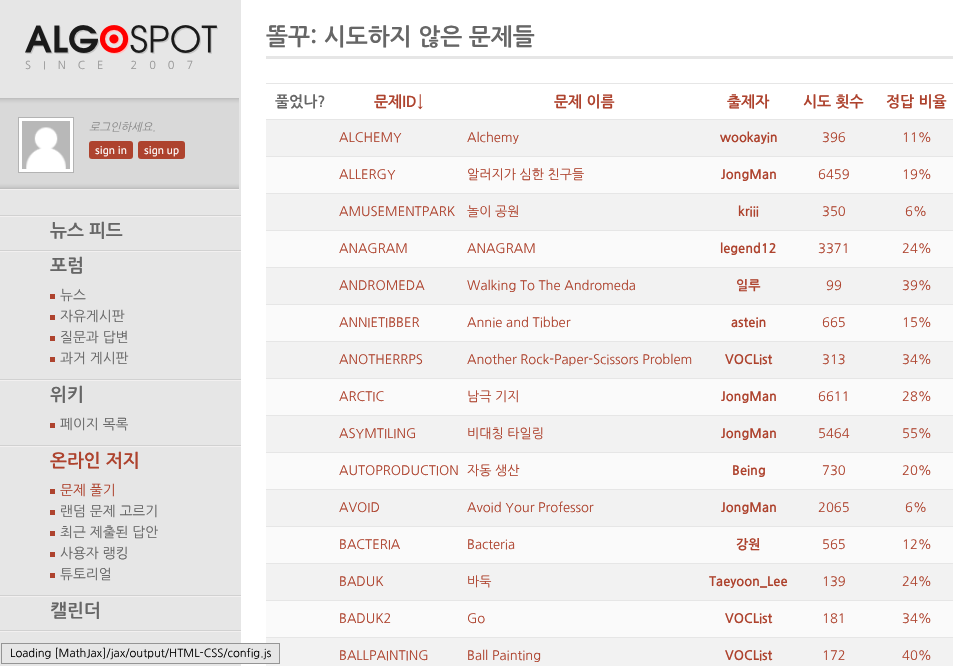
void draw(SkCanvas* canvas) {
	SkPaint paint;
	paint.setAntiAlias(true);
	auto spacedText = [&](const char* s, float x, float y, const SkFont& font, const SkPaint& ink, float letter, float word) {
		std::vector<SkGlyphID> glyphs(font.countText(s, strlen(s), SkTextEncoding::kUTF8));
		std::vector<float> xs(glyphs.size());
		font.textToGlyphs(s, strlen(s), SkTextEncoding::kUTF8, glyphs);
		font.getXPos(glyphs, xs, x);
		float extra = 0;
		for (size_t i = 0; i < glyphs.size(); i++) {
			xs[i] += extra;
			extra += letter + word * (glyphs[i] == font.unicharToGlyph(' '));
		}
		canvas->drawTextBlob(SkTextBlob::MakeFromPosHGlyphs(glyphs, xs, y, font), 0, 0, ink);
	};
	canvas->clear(0xffe6e6e6);
	canvas->drawImageRect(SkImages::DeferredFromEncodedData(SkData::MakeFromFileName("img1.png")), SkRect::MakeXYWH(25, 25, 193, 29), SkSamplingOptions());
	SkFont f1(fontMgr->matchFamilyStyle("NanumGothic", SkFontStyle::Normal()), 11);
	f1.setSubpixel(true);
	paint.setColor(0xff999999);
	spacedText("SINCE 2007", 25, 69, f1, paint, 12, 0);
	paint.setColor(0xffd9d9d9);
	canvas->drawRect(SkRect::MakeXYWH(0, 99, 239, 90), paint);
	canvas->drawImageRect(SkImages::DeferredFromEncodedData(SkData::MakeFromFileName("img2.png")), SkRect::MakeXYWH(0, 99, 239, 91), SkSamplingOptions());
	paint.setColor(0xffbfbfbf);
	canvas->drawRect(SkRect::MakeXYWH(0, 98, 239, 1), paint);
	paint.setColor(0xffffffff);
	canvas->drawRect(SkRect::MakeXYWH(18.5, 117.5, 55, 55), paint);
	paint.setStroke(true);
	paint.setStrokeWidth(1);
	paint.setColor(0xffb3b3b3);
	canvas->drawRect(SkRect::MakeXYWH(18.5, 117.5, 55, 55), paint);
	canvas->drawImageRect(SkImages::DeferredFromEncodedData(SkData::MakeFromFileName("img3.png")), SkRect::MakeXYWH(22, 121, 48, 48), SkSamplingOptions());
	SkFont f2(fontMgr->matchFamilyStyle("NanumGothic", SkFontStyle::Italic()), 11.2);
	f2.setSubpixel(true);
	paint.setStroke(false);
	paint.setColor(0xff8c8c8c);
	canvas->drawString("로그인하세요.", 89, 131, f2, paint);
	paint.setColor(0xffae432e);
	canvas->drawRoundRect(SkRect::MakeXYWH(89, 141, 44, 18), 3, 3, paint);
	SkFont f3(fontMgr->matchFamilyStyle("PT Sans", SkFontStyle::Normal()), 11.2);
	f3.setSubpixel(true);
	paint.setColor(0xffffffff);
	canvas->drawString("sign in", 95, 154, f3, paint);
	paint.setColor(0xffae432e);
	canvas->drawRoundRect(SkRect::MakeXYWH(138, 141, 47, 18), 3, 3, paint);
	paint.setColor(0xffffffff);
	canvas->drawString("sign up", 144, 154, f3, paint);
	canvas->drawImageRect(SkImages::DeferredFromEncodedData(SkData::MakeFromFileName("img4.png")), SkRect::MakeXYWH(0, 215, 241, 2), SkSamplingOptions());
	SkFont f4(fontMgr->matchFamilyStyle("NanumGothic", SkFontStyle::Bold()), 18);
	f4.setSubpixel(true);
	paint.setColor(0xff666666);
	canvas->drawString("뉴스 피드", 50, 237, f4, paint);
	canvas->drawImageRect(SkImages::DeferredFromEncodedData(SkData::MakeFromFileName("img4.png")), SkRect::MakeXYWH(0, 250, 241, 2), SkSamplingOptions());
	canvas->drawString("포럼", 50, 272, f4, paint);
	paint.setColor(0xffae432e);
	canvas->drawRect(SkRect::MakeXYWH(50, 294, 5, 5), paint);
	SkFont f5(fontMgr->matchFamilyStyle("NanumGothic", SkFontStyle::Normal()), 13.75);
	f5.setSubpixel(true);
	paint.setColor(0xff666666);
	canvas->drawString("뉴스", 60, 300, f5, paint);
	paint.setColor(0xffae432e);
	canvas->drawRect(SkRect::MakeXYWH(50, 315, 5, 5), paint);
	paint.setColor(0xff666666);
	canvas->drawString("자유게시판", 60, 321, f5, paint);
	paint.setColor(0xffae432e);
	canvas->drawRect(SkRect::MakeXYWH(50, 336, 5, 5), paint);
	paint.setColor(0xff666666);
	canvas->drawString("질문과 답변", 60, 342, f5, paint);
	paint.setColor(0xffae432e);
	canvas->drawRect(SkRect::MakeXYWH(50, 357, 5, 5), paint);
	paint.setColor(0xff666666);
	canvas->drawString("과거 게시판", 60, 363, f5, paint);
	canvas->drawImageRect(SkImages::DeferredFromEncodedData(SkData::MakeFromFileName("img4.png")), SkRect::MakeXYWH(0, 379, 241, 2), SkSamplingOptions());
	canvas->drawString("위키", 50, 401, f4, paint);
	paint.setColor(0xffae432e);
	canvas->drawRect(SkRect::MakeXYWH(50, 423, 5, 5), paint);
	paint.setColor(0xff666666);
	canvas->drawString("페이지 목록", 60, 429, f5, paint);
	canvas->drawImageRect(SkImages::DeferredFromEncodedData(SkData::MakeFromFileName("img4.png")), SkRect::MakeXYWH(0, 445, 241, 2), SkSamplingOptions());
	paint.setColor(0xffae432e);
	canvas->drawString("온라인 저지", 50, 467, f4, paint);
	canvas->drawRect(SkRect::MakeXYWH(50, 489, 5, 5), paint);
	canvas->drawString("문제 풀기", 60, 495, f5, paint);
	canvas->drawRect(SkRect::MakeXYWH(50, 510, 5, 5), paint);
	paint.setColor(0xff666666);
	canvas->drawString("랜덤 문제 고르기", 60, 516, f5, paint);
	paint.setColor(0xffae432e);
	canvas->drawRect(SkRect::MakeXYWH(50, 531, 5, 5), paint);
	paint.setColor(0xff666666);
	canvas->drawString("최근 제출된 답안", 60, 537, f5, paint);
	paint.setColor(0xffae432e);
	canvas->drawRect(SkRect::MakeXYWH(50, 552, 5, 5), paint);
	paint.setColor(0xff666666);
	canvas->drawString("사용자 랭킹", 60, 558, f5, paint);
	paint.setColor(0xffae432e);
	canvas->drawRect(SkRect::MakeXYWH(50, 573, 5, 5), paint);
	paint.setColor(0xff666666);
	canvas->drawString("튜토리얼", 60, 579, f5, paint);
	canvas->drawImageRect(SkImages::DeferredFromEncodedData(SkData::MakeFromFileName("img4.png")), SkRect::MakeXYWH(0, 595, 241, 2), SkSamplingOptions());
	canvas->drawString("캘린더", 50, 617, f4, paint);
	canvas->drawImageRect(SkImages::DeferredFromEncodedData(SkData::MakeFromFileName("img4.png")), SkRect::MakeXYWH(0, 630, 241, 2), SkSamplingOptions());
	paint.setColor(0xffffffff);
	canvas->drawRect(SkRect::MakeXYWH(241, 0, 712, 666), paint);
	paint.setColor(0xffe6e6e6);
	canvas->drawRect(SkRect::MakeXYWH(266, 56, 687, 3), paint);
	SkFont f6(fontMgr->matchFamilyStyle("NanumGothic", SkFontStyle::Bold()), 23.4);
	f6.setSubpixel(true);
	paint.setColor(0xff666666);
	canvas->drawString("똘꾸: 시도하지 않은 문제들", 266, 45, f6, paint);
	paint.setColor(0xffe6e6e6);
	canvas->drawRect(SkRect::MakeXYWH(266, 83, 687, 1), paint);
	SkFont f7(fontMgr->matchFamilyStyle("NanumGothic", SkFontStyle::Bold()), 15);
	f7.setSubpixel(true);
	paint.setColor(0xff666666);
	canvas->drawString("풀었나?", 275, 107, f7, paint);
	paint.setColor(0xffae432e);
	canvas->drawString("문제ID↓", 374, 107, f7, paint);
	canvas->drawString("문제 이름", 554, 107, f7, paint);
	canvas->drawString("출제자", 727, 107, f7, paint);
	canvas->drawString("시도 횟수", 803, 107, f7, paint);
	canvas->drawString("정답 비율", 886, 107, f7, paint);
	paint.setColor(0xffe6e6e6);
	canvas->drawRect(SkRect::MakeXYWH(266, 119, 687, 1), paint);
	paint.setColor(0xfff2f2f2);
	canvas->drawRect(SkRect::MakeXYWH(266, 120, 687, 36), paint);
	SkFont f8(fontMgr->matchFamilyStyle("NanumGothic", SkFontStyle::Normal()), 13);
	f8.setSubpixel(true);
	paint.setColor(0xffae432e);
	canvas->drawString("ALCHEMY", 339, 142, f8, paint);
	canvas->drawString("Alchemy", 467, 142, f8, paint);
	SkFont f9(fontMgr->matchFamilyStyle("NanumGothic", SkFontStyle::Bold()), 13);
	f9.setSubpixel(true);
	canvas->drawString("wookayin", 720, 142, f9, paint);
	canvas->drawString("396", 822, 142, f8, paint);
	paint.setColor(0xffe6e6e6);
	canvas->drawRect(SkRect::MakeXYWH(266, 156, 687, 1), paint);
	paint.setColor(0xffae432e);
	canvas->drawString("11%", 902, 142, f8, paint);
	paint.setColor(0xfffafafa);
	canvas->drawRect(SkRect::MakeXYWH(266, 157, 687, 36), paint);
	paint.setColor(0xffae432e);
	canvas->drawString("ALLERGY", 339, 179, f8, paint);
	canvas->drawString("알러지가 심한 친구들", 467, 179, f8, paint);
	canvas->drawString("JongMan", 721, 179, f9, paint);
	canvas->drawString("6459", 818, 179, f8, paint);
	paint.setColor(0xffe6e6e6);
	canvas->drawRect(SkRect::MakeXYWH(266, 193, 687, 1), paint);
	paint.setColor(0xffae432e);
	canvas->drawString("19%", 902, 179, f8, paint);
	paint.setColor(0xfff2f2f2);
	canvas->drawRect(SkRect::MakeXYWH(266, 194, 687, 36), paint);
	paint.setColor(0xffae432e);
	canvas->drawString("AMUSEMENTPARK", 339, 216, f8, paint);
	canvas->drawString("놀이 공원", 467, 216, f8, paint);
	canvas->drawString("kriii", 738, 216, f9, paint);
	canvas->drawString("350", 822, 216, f8, paint);
	paint.setColor(0xffe6e6e6);
	canvas->drawRect(SkRect::MakeXYWH(266, 230, 687, 1), paint);
	paint.setColor(0xffae432e);
	canvas->drawString("6%", 905, 216, f8, paint);
	paint.setColor(0xfffafafa);
	canvas->drawRect(SkRect::MakeXYWH(266, 231, 687, 36), paint);
	paint.setColor(0xffae432e);
	canvas->drawString("ANAGRAM", 339, 253, f8, paint);
	canvas->drawString("ANAGRAM", 467, 253, f8, paint);
	canvas->drawString("legend12", 720, 253, f9, paint);
	canvas->drawString("3371", 818, 253, f8, paint);
	paint.setColor(0xffe6e6e6);
	canvas->drawRect(SkRect::MakeXYWH(266, 267, 687, 1), paint);
	paint.setColor(0xffae432e);
	canvas->drawString("24%", 902, 253, f8, paint);
	paint.setColor(0xfff2f2f2);
	canvas->drawRect(SkRect::MakeXYWH(266, 268, 687, 36), paint);
	paint.setColor(0xffae432e);
	canvas->drawString("ANDROMEDA", 339, 290, f8, paint);
	canvas->drawString("Walking To The Andromeda", 467, 290, f8, paint);
	canvas->drawString("일루", 736, 290, f9, paint);
	canvas->drawString("99", 826, 290, f8, paint);
	paint.setColor(0xffe6e6e6);
	canvas->drawRect(SkRect::MakeXYWH(266, 304, 687, 1), paint);
	paint.setColor(0xffae432e);
	canvas->drawString("39%", 902, 290, f8, paint);
	paint.setColor(0xfffafafa);
	canvas->drawRect(SkRect::MakeXYWH(266, 305, 687, 36), paint);
	paint.setColor(0xffae432e);
	canvas->drawString("ANNIETIBBER", 339, 327, f8, paint);
	canvas->drawString("Annie and Tibber", 467, 327, f8, paint);
	canvas->drawString("astein", 731, 327, f9, paint);
	canvas->drawString("665", 822, 327, f8, paint);
	paint.setColor(0xffe6e6e6);
	canvas->drawRect(SkRect::MakeXYWH(266, 341, 687, 1), paint);
	paint.setColor(0xffae432e);
	canvas->drawString("15%", 902, 327, f8, paint);
	paint.setColor(0xfff2f2f2);
	canvas->drawRect(SkRect::MakeXYWH(266, 342, 687, 36), paint);
	paint.setColor(0xffae432e);
	canvas->drawString("ANOTHERRPS", 339, 364, f8, paint);
	canvas->drawString("Another Rock-Paper-Scissors Problem", 467, 364, f8, paint);
	canvas->drawString("VOCList", 725, 364, f9, paint);
	canvas->drawString("313", 822, 364, f8, paint);
	paint.setColor(0xffe6e6e6);
	canvas->drawRect(SkRect::MakeXYWH(266, 378, 687, 1), paint);
	paint.setColor(0xffae432e);
	canvas->drawString("34%", 902, 364, f8, paint);
	paint.setColor(0xfffafafa);
	canvas->drawRect(SkRect::MakeXYWH(266, 379, 687, 36), paint);
	paint.setColor(0xffae432e);
	canvas->drawString("ARCTIC", 339, 401, f8, paint);
	canvas->drawString("남극 기지", 467, 401, f8, paint);
	canvas->drawString("JongMan", 721, 401, f9, paint);
	canvas->drawString("6611", 818, 401, f8, paint);
	paint.setColor(0xffe6e6e6);
	canvas->drawRect(SkRect::MakeXYWH(266, 415, 687, 1), paint);
	paint.setColor(0xffae432e);
	canvas->drawString("28%", 902, 401, f8, paint);
	paint.setColor(0xfff2f2f2);
	canvas->drawRect(SkRect::MakeXYWH(266, 416, 687, 36), paint);
	paint.setColor(0xffae432e);
	canvas->drawString("ASYMTILING", 339, 438, f8, paint);
	canvas->drawString("비대칭 타일링", 467, 438, f8, paint);
	canvas->drawString("JongMan", 721, 438, f9, paint);
	canvas->drawString("5464", 818, 438, f8, paint);
	paint.setColor(0xffe6e6e6);
	canvas->drawRect(SkRect::MakeXYWH(266, 452, 687, 1), paint);
	paint.setColor(0xffae432e);
	canvas->drawString("55%", 902, 438, f8, paint);
	paint.setColor(0xfffafafa);
	canvas->drawRect(SkRect::MakeXYWH(266, 453, 687, 36), paint);
	paint.setColor(0xffae432e);
	canvas->drawString("AUTOPRODUCTION", 339, 475, f8, paint);
	canvas->drawString("자동 생산", 467, 475, f8, paint);
	canvas->drawString("Being", 732, 475, f9, paint);
	canvas->drawString("730", 822, 475, f8, paint);
	paint.setColor(0xffe6e6e6);
	canvas->drawRect(SkRect::MakeXYWH(266, 489, 687, 1), paint);
	paint.setColor(0xffae432e);
	canvas->drawString("20%", 902, 475, f8, paint);
	paint.setColor(0xfff2f2f2);
	canvas->drawRect(SkRect::MakeXYWH(266, 490, 687, 36), paint);
	paint.setColor(0xffae432e);
	canvas->drawString("AVOID", 339, 512, f8, paint);
	canvas->drawString("Avoid Your Professor", 467, 512, f8, paint);
	canvas->drawString("JongMan", 721, 512, f9, paint);
	canvas->drawString("2065", 818, 512, f8, paint);
	paint.setColor(0xffe6e6e6);
	canvas->drawRect(SkRect::MakeXYWH(266, 526, 687, 1), paint);
	paint.setColor(0xffae432e);
	canvas->drawString("6%", 905, 512, f8, paint);
	paint.setColor(0xfffafafa);
	canvas->drawRect(SkRect::MakeXYWH(266, 527, 687, 36), paint);
	paint.setColor(0xffae432e);
	canvas->drawString("BACTERIA", 339, 549, f8, paint);
	canvas->drawString("Bacteria", 467, 549, f8, paint);
	canvas->drawString("강원", 736, 549, f9, paint);
	canvas->drawString("565", 822, 549, f8, paint);
	paint.setColor(0xffe6e6e6);
	canvas->drawRect(SkRect::MakeXYWH(266, 563, 687, 1), paint);
	paint.setColor(0xffae432e);
	canvas->drawString("12%", 902, 549, f8, paint);
	paint.setColor(0xfff2f2f2);
	canvas->drawRect(SkRect::MakeXYWH(266, 564, 687, 36), paint);
	paint.setColor(0xffae432e);
	canvas->drawString("BADUK", 339, 586, f8, paint);
	canvas->drawString("바둑", 467, 586, f8, paint);
	canvas->drawString("Taeyoon_Lee", 709, 586, f9, paint);
	canvas->drawString("139", 822, 586, f8, paint);
	paint.setColor(0xffe6e6e6);
	canvas->drawRect(SkRect::MakeXYWH(266, 600, 687, 1), paint);
	paint.setColor(0xffae432e);
	canvas->drawString("24%", 902, 586, f8, paint);
	paint.setColor(0xfffafafa);
	canvas->drawRect(SkRect::MakeXYWH(266, 601, 687, 36), paint);
	paint.setColor(0xffae432e);
	canvas->drawString("BADUK2", 339, 623, f8, paint);
	canvas->drawString("Go", 467, 623, f8, paint);
	canvas->drawString("VOCList", 725, 623, f9, paint);
	canvas->drawString("181", 822, 623, f8, paint);
	paint.setColor(0xffe6e6e6);
	canvas->drawRect(SkRect::MakeXYWH(266, 637, 687, 1), paint);
	paint.setColor(0xffae432e);
	canvas->drawString("34%", 902, 623, f8, paint);
	paint.setColor(0xfff2f2f2);
	canvas->drawRect(SkRect::MakeXYWH(266, 638, 687, 28), paint);
	paint.setColor(0xffae432e);
	canvas->drawString("BALLPAINTING", 339, 660, f8, paint);
	canvas->drawString("Ball Painting", 467, 660, f8, paint);
	canvas->drawString("VOCList", 725, 660, f9, paint);
	canvas->drawString("172", 822, 660, f8, paint);
	canvas->drawString("40%", 902, 660, f8, paint);
	paint.setColor(0xffe6e6e6);
	canvas->drawRect(SkRect::MakeXYWH(241, 644, 38, 19), paint);
	paint.setStroke(true);
	paint.setColor(0xff959595);
	canvas->drawRect(SkRect::MakeXYWH(1.5, 643.5, 278, 20), paint);
	SkFont f10(fontMgr->matchFamilyStyle("NanumGothic", SkFontStyle::Normal()), 11.2);
	f10.setSubpixel(true);
	paint.setStroke(false);
	paint.setColor(0xff000000);
	canvas->drawString("Loading [MathJax]/jax/output/HTML-CSS/config.js", 10, 657, f10, paint);
}
